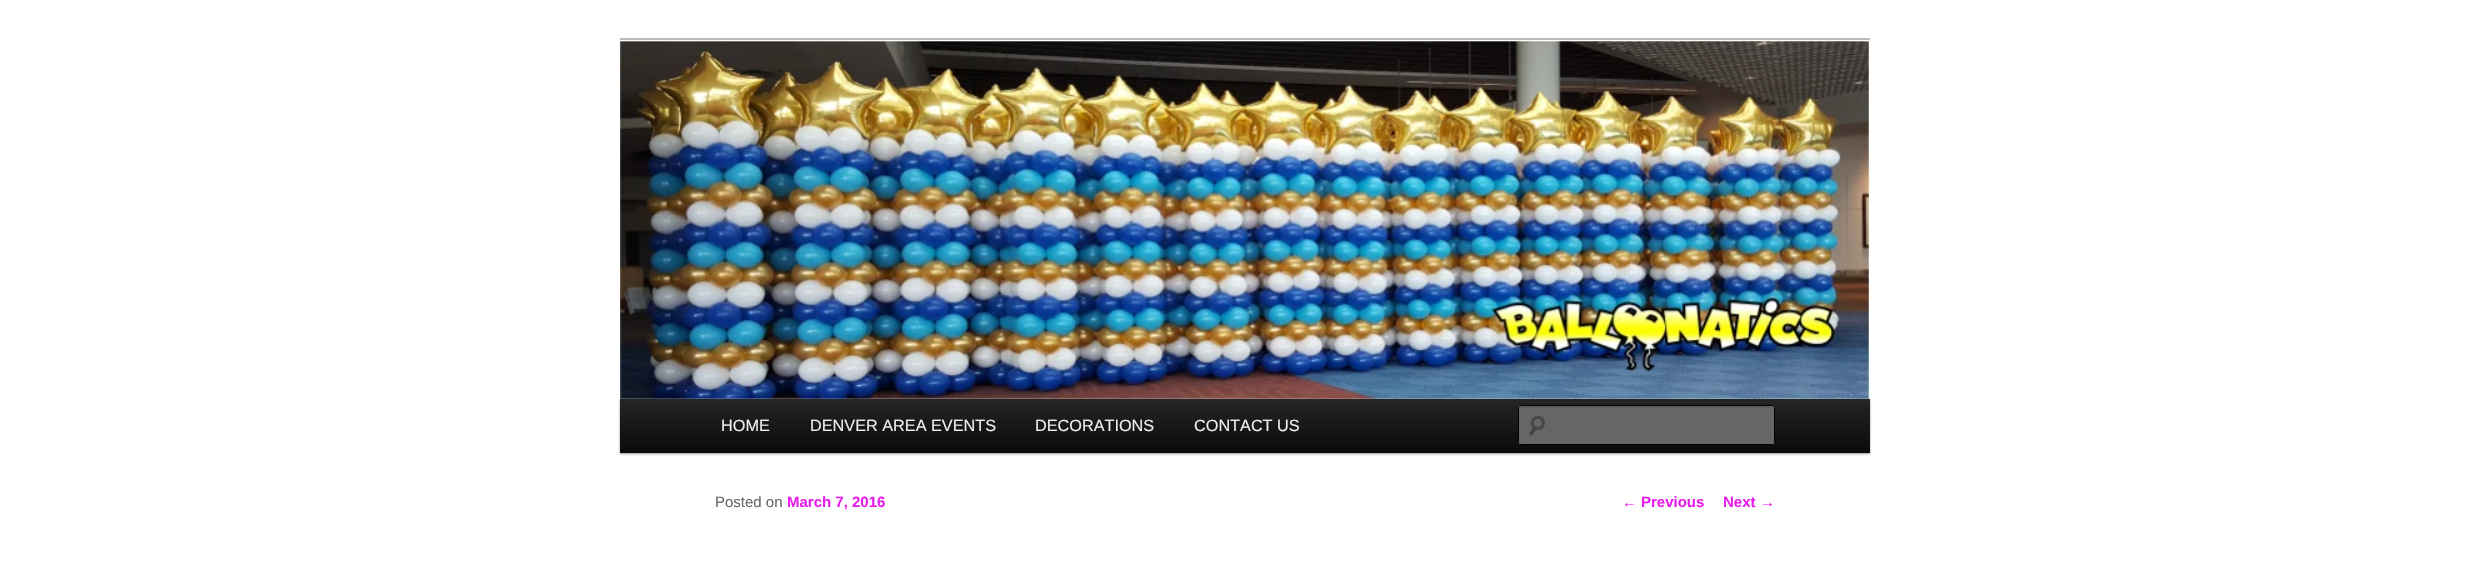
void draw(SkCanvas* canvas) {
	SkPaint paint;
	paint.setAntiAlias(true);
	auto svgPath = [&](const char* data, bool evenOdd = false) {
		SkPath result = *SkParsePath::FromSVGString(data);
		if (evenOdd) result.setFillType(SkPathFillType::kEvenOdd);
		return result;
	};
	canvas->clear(0xffffffff);
	paint.setColor(0xffbbbbbb);
	canvas->drawRect(SkRect::MakeXYWH(620, 38, 1250, 2), paint);
	paint.setColor(0x66000000);
	paint.setMaskFilter(SkMaskFilter::MakeBlur(kNormal_SkBlurStyle, 1));
	canvas->drawRect(SkRect::MakeXYWH(620, 400, 1250, 54), paint);
	paint.setMaskFilter(nullptr);
	canvas->drawImageRect(SkImages::DeferredFromEncodedData(SkData::MakeFromFileName("img1.png")), SkRect::MakeXYWH(620, 40, 1250, 359), SkSamplingOptions());
	{
		const SkColor colors[] = {0xff252525, 0xff0a0a0a};
		const float stops[] = {0, 1};
		const SkPoint ends[] = {{1245, 399}, {1245, 453}};
		paint.setShader(SkGradientShader::MakeLinear(ends, colors, stops, 2, SkTileMode::kClamp));
		paint.setAlpha(255);
	}
	canvas->drawRect(SkRect::MakeXYWH(620, 399, 1250, 54), paint);
	SkFont f1(fontMgr->matchFamilyStyle("Liberation Sans", SkFontStyle::Normal()), 16.25);
	f1.setSubpixel(true);
	paint.setShader(nullptr);
	paint.setColor(0xffeeeeee);
	canvas->drawString("HOME", 721, 431, f1, paint);
	canvas->drawString("DENVER AREA EVENTS", 810, 431, f1, paint);
	canvas->drawString("DECORATIONS", 1035, 431, f1, paint);
	canvas->drawString("CONTACT US", 1194, 431, f1, paint);
	paint.setColor(0xff666666);
	canvas->drawRoundRect(SkRect::MakeXYWH(1518, 405, 257, 40), 2.5, 2.5, paint);
	canvas->drawImageRect(SkImages::DeferredFromEncodedData(SkData::MakeFromFileName("img2.png")), SkRect::MakeXYWH(1529, 415, 16, 21), SkSamplingOptions());
	paint.setColor(0xff5c5c5c);
	canvas->drawPath(svgPath("M1520 408H1772C1773 408 1774 408 1774 409C1774 408 1774 406 1773 406H1519V409C1519 408 1519 408 1520 408Z"), paint);
	paint.setStroke(true);
	paint.setStrokeWidth(1);
	paint.setColor(0xff000000);
	canvas->drawRoundRect(SkRect::MakeXYWH(1518.5, 405.5, 256, 39), 2, 2, paint);
	SkFont f2(fontMgr->matchFamilyStyle("Liberation Sans", SkFontStyle::Normal()), 15);
	f2.setSubpixel(true);
	paint.setStroke(false);
	paint.setColor(0xff666666);
	canvas->drawString("Posted on", 715, 507, f2, paint);
	SkFont f3(fontMgr->matchFamilyStyle("Liberation Sans", SkFontStyle::Bold()), 15);
	f3.setSubpixel(true);
	paint.setColor(0xffe91ced);
	canvas->drawString("March 7, 2016", 787, 507, f3, paint);
	canvas->drawString("←", 1622, 507, f2, paint);
	canvas->drawString("Previous", 1641, 507, f3, paint);
	canvas->drawString("Next", 1723, 507, f3, paint);
	canvas->drawString("→", 1760, 507, f2, paint);
}
